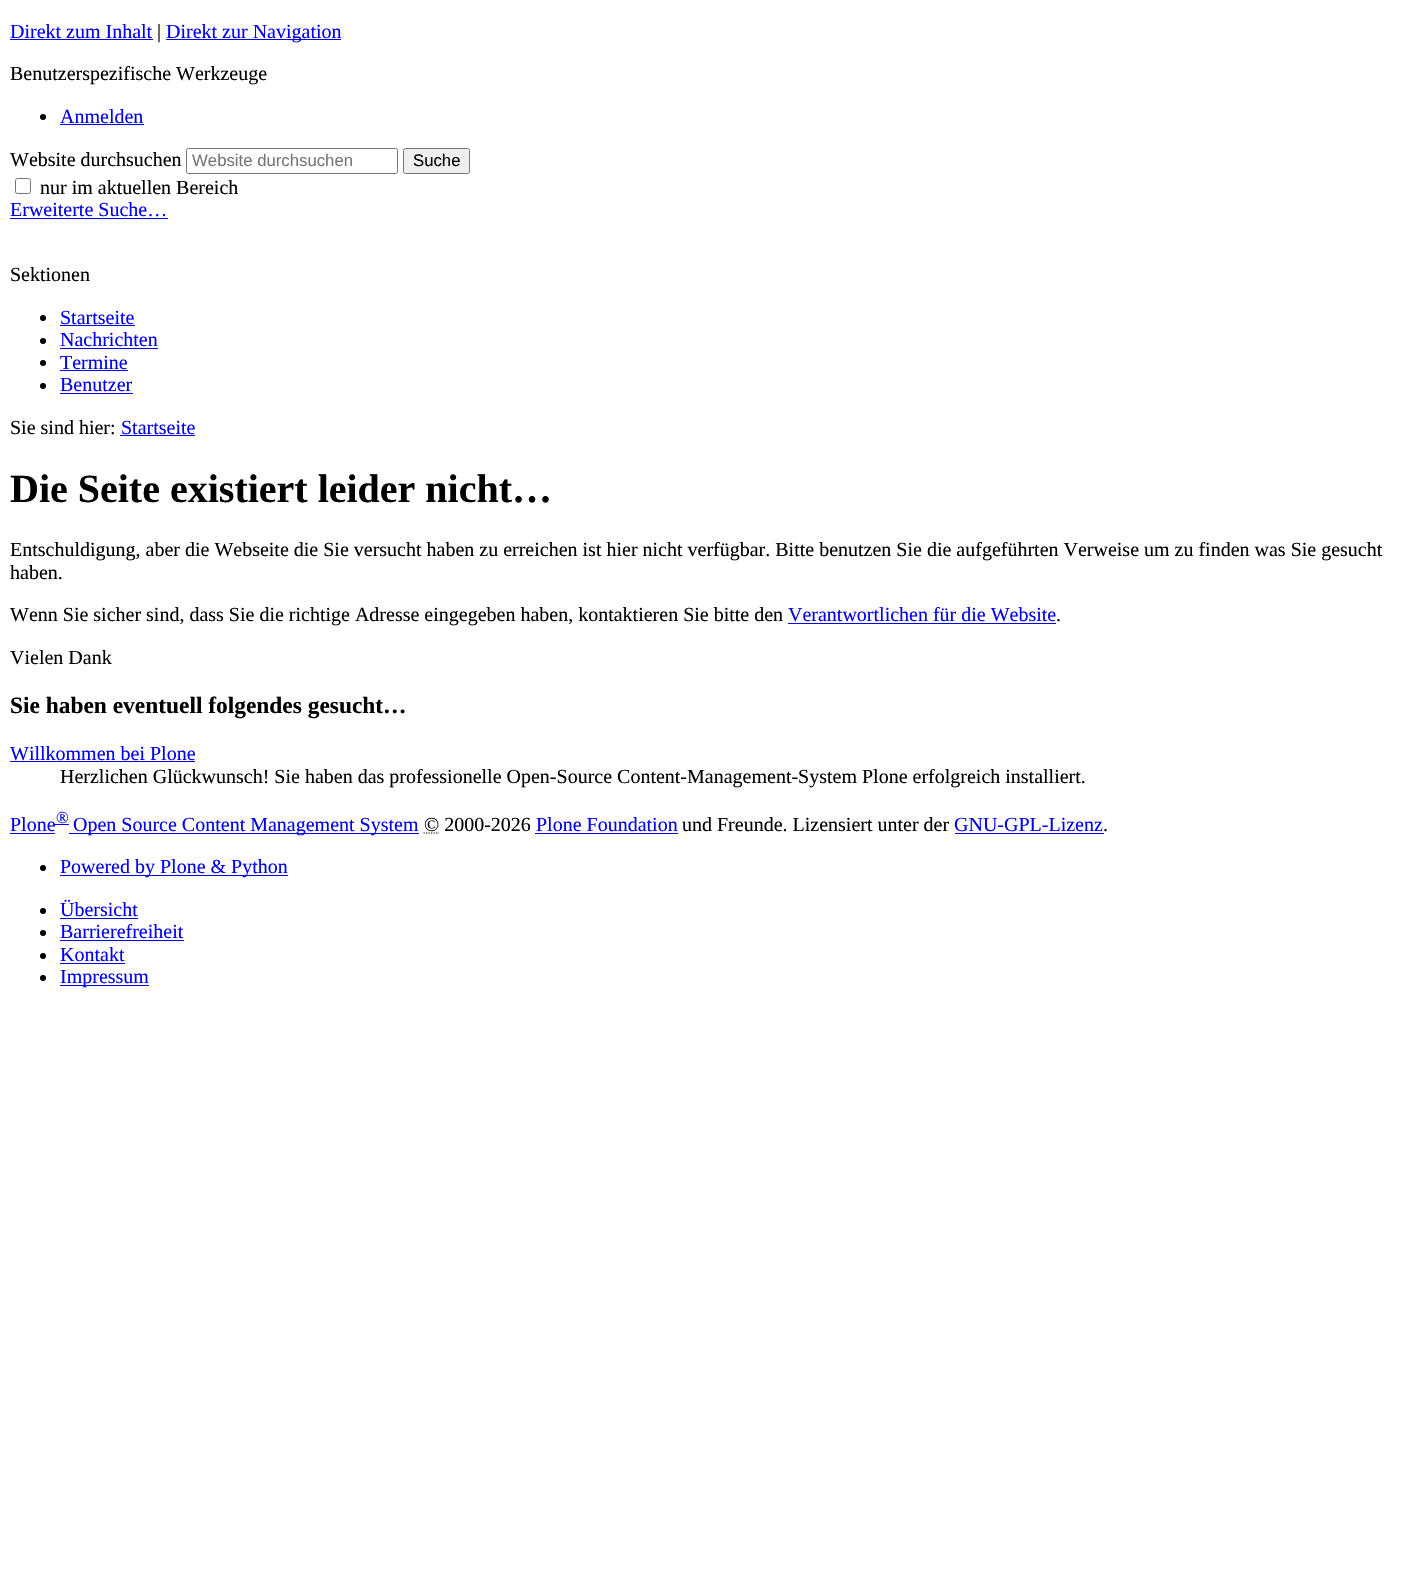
void draw(SkCanvas* canvas) {
	SkPaint paint;
	paint.setAntiAlias(true);
	auto svgPath = [&](const char* data, bool evenOdd = false) {
		SkPath result = *SkParsePath::FromSVGString(data);
		if (evenOdd) result.setFillType(SkPathFillType::kEvenOdd);
		return result;
	};
	canvas->clear(0xffffffff);
	SkFont f1(fontMgr->matchFamilyStyle("Liberation Serif", SkFontStyle::Normal()), 20);
	f1.setSubpixel(true);
	paint.setColor(0xff0000ee);
	canvas->drawString("Direkt zum Inhalt", 10, 38, f1, paint);
	canvas->drawRect(SkRect::MakeXYWH(10, 39, 143, 1), paint);
	paint.setColor(0xff000000);
	canvas->drawString("|", 157, 38, f1, paint);
	paint.setColor(0xff0000ee);
	canvas->drawRect(SkRect::MakeXYWH(166, 39, 175, 1), paint);
	canvas->drawString("Direkt zur Navigation", 166, 38, f1, paint);
	paint.setColor(0xff000000);
	canvas->drawString("Benutzerspezifische Werkzeuge", 10, 80, f1, paint);
	canvas->drawCircle(43, 117, 3, paint);
	paint.setColor(0xff0000ee);
	canvas->drawString("Anmelden", 60, 123, f1, paint);
	canvas->drawRect(SkRect::MakeXYWH(60, 124, 84, 1), paint);
	paint.setColor(0xff000000);
	canvas->drawString("Website durchsuchen", 10, 166, f1, paint);
	paint.setStroke(true);
	paint.setStrokeWidth(1);
	paint.setColor(0xff767676);
	canvas->drawRoundRect(SkRect::MakeXYWH(186.5, 148.5, 211, 25), 2, 2, paint);
	SkFont f2(fontMgr->matchFamilyStyle("Liberation Sans", SkFontStyle::Normal()), 16.75);
	f2.setSubpixel(true);
	paint.setStroke(false);
	paint.setColor(0xff757575);
	canvas->drawString("Website durchsuchen", 192, 166, f2, paint);
	paint.setColor(0xffefefef);
	canvas->drawRoundRect(SkRect::MakeXYWH(403.5, 148.5, 66, 25), 2, 2, paint);
	paint.setStroke(true);
	paint.setColor(0xff767676);
	canvas->drawRoundRect(SkRect::MakeXYWH(403.5, 148.5, 66, 25), 2, 2, paint);
	paint.setStroke(false);
	paint.setColor(0xff000000);
	canvas->drawString("Suche", 413, 166, f2, paint);
	paint.setStroke(true);
	paint.setColor(0xff767676);
	canvas->drawRoundRect(SkRect::MakeXYWH(15.5, 178.5, 15, 15), 2, 2, paint);
	paint.setStroke(false);
	paint.setColor(0xff000000);
	canvas->drawString("nur im aktuellen Bereich", 40, 194, f1, paint);
	paint.setColor(0xff0000ee);
	canvas->drawString("Erweiterte Suche…", 10, 216, f1, paint);
	canvas->drawRect(SkRect::MakeXYWH(10, 218, 158, 1), paint);
	paint.setColor(0xff000000);
	canvas->drawString("Sektionen", 10, 281, f1, paint);
	canvas->drawCircle(43, 318, 3, paint);
	paint.setColor(0xff0000ee);
	canvas->drawString("Startseite", 60, 324, f1, paint);
	canvas->drawRect(SkRect::MakeXYWH(60, 325, 75, 1), paint);
	paint.setColor(0xff000000);
	canvas->drawCircle(43, 341, 3, paint);
	paint.setColor(0xff0000ee);
	canvas->drawString("Nachrichten", 60, 346, f1, paint);
	canvas->drawRect(SkRect::MakeXYWH(60, 348, 98, 1), paint);
	paint.setColor(0xff000000);
	canvas->drawCircle(43, 363, 3, paint);
	paint.setColor(0xff0000ee);
	canvas->drawString("Termine", 60, 369, f1, paint);
	canvas->drawRect(SkRect::MakeXYWH(60, 370, 68, 1), paint);
	paint.setColor(0xff000000);
	canvas->drawCircle(43, 386, 3, paint);
	paint.setColor(0xff0000ee);
	canvas->drawString("Benutzer", 60, 391, f1, paint);
	canvas->drawRect(SkRect::MakeXYWH(60, 393, 73, 1), paint);
	paint.setColor(0xff000000);
	canvas->drawString("Sie sind hier:", 10, 434, f1, paint);
	paint.setColor(0xff0000ee);
	canvas->drawString("Startseite", 121, 434, f1, paint);
	canvas->drawRect(SkRect::MakeXYWH(120, 435, 75, 1), paint);
	SkFont f3(fontMgr->matchFamilyStyle("Liberation Serif", SkFontStyle::Bold()), 40);
	f3.setSubpixel(true);
	paint.setColor(0xff000000);
	canvas->drawString("Die Seite existiert leider nicht…", 10, 502, f3, paint);
	canvas->drawString("Entschuldigung, aber die Webseite die Sie versucht haben zu erreichen ist hier nicht verfügbar. Bitte benutzen Sie die aufgeführten Verweise um zu finden was Sie gesucht", 10, 556, f1, paint);
	canvas->drawString("haben.", 10, 579, f1, paint);
	canvas->drawString("Wenn Sie sicher sind, dass Sie die richtige Adresse eingegeben haben, kontaktieren Sie bitte den", 10, 621, f1, paint);
	paint.setColor(0xff0000ee);
	canvas->drawString("Verantwortlichen für die Website", 788, 621, f1, paint);
	canvas->drawRect(SkRect::MakeXYWH(788, 623, 268, 1), paint);
	paint.setColor(0xff000000);
	canvas->drawString(".", 1056, 621, f1, paint);
	canvas->drawString("Vielen Dank", 10, 664, f1, paint);
	SkFont f4(fontMgr->matchFamilyStyle("Liberation Serif", SkFontStyle::Bold()), 23.4);
	f4.setSubpixel(true);
	canvas->drawString("Sie haben eventuell folgendes gesucht…", 10, 713, f4, paint);
	paint.setColor(0xff0000ee);
	canvas->drawString("Willkommen bei Plone", 10, 760, f1, paint);
	canvas->drawRect(SkRect::MakeXYWH(10, 761, 185, 1), paint);
	paint.setColor(0xff000000);
	canvas->drawString("Herzlichen Glückwunsch! Sie haben das professionelle Open-Source Content-Management-System Plone erfolgreich installiert.", 60, 783, f1, paint);
	paint.setColor(0xff0000ee);
	canvas->drawString("Plone", 10, 831, f1, paint);
	canvas->drawRect(SkRect::MakeXYWH(10, 833, 45, 1), paint);
	canvas->drawRect(SkRect::MakeXYWH(55, 824, 14, 1), paint);
	SkFont f5(fontMgr->matchFamilyStyle("Liberation Serif", SkFontStyle::Normal()), 16.75);
	f5.setSubpixel(true);
	canvas->drawString("®", 56, 823, f5, paint);
	canvas->drawRect(SkRect::MakeXYWH(69, 833, 350, 1), paint);
	canvas->drawString("Open Source Content Management System", 73, 831, f1, paint);
	paint.setColor(0xff000000);
	canvas->drawString("© 2000-2026", 424, 831, f1, paint);
	paint.setStroke(true);
	paint.setStrokeWidth(1.2);
	paint.setPathEffect(SkDashPathEffect::Make({{1.25f, 1.25f}}, 0));
	canvas->drawPath(svgPath("M423.5 833H439"), paint);
	paint.setPathEffect(nullptr);
	paint.setStroke(false);
	paint.setColor(0xff0000ee);
	canvas->drawString("Plone Foundation", 536, 831, f1, paint);
	canvas->drawRect(SkRect::MakeXYWH(535, 833, 143, 1), paint);
	paint.setColor(0xff000000);
	canvas->drawString("und Freunde. Lizensiert unter der", 682, 831, f1, paint);
	paint.setColor(0xff0000ee);
	canvas->drawString("GNU-GPL-Lizenz", 954, 831, f1, paint);
	canvas->drawRect(SkRect::MakeXYWH(955, 833, 149, 1), paint);
	paint.setColor(0xff000000);
	canvas->drawString(".", 1103, 831, f1, paint);
	canvas->drawCircle(43, 868, 3, paint);
	paint.setColor(0xff0000ee);
	canvas->drawRect(SkRect::MakeXYWH(60, 875, 228, 1), paint);
	canvas->drawString("Powered by Plone & Python", 60, 873, f1, paint);
	paint.setColor(0xff000000);
	canvas->drawCircle(43, 911, 3, paint);
	paint.setColor(0xff0000ee);
	canvas->drawString("Übersicht", 60, 916, f1, paint);
	canvas->drawRect(SkRect::MakeXYWH(60, 918, 78, 1), paint);
	paint.setColor(0xff000000);
	canvas->drawCircle(43, 933, 3, paint);
	paint.setColor(0xff0000ee);
	canvas->drawString("Barrierefreiheit", 60, 938, f1, paint);
	canvas->drawRect(SkRect::MakeXYWH(60, 940, 124, 1), paint);
	paint.setColor(0xff000000);
	canvas->drawCircle(43, 956, 3, paint);
	paint.setColor(0xff0000ee);
	canvas->drawString("Kontakt", 60, 961, f1, paint);
	canvas->drawRect(SkRect::MakeXYWH(60, 963, 65, 1), paint);
	paint.setColor(0xff000000);
	canvas->drawCircle(43, 978, 3, paint);
	paint.setColor(0xff0000ee);
	canvas->drawRect(SkRect::MakeXYWH(60, 985, 89, 1), paint);
	canvas->drawString("Impressum", 60, 983, f1, paint);
}
